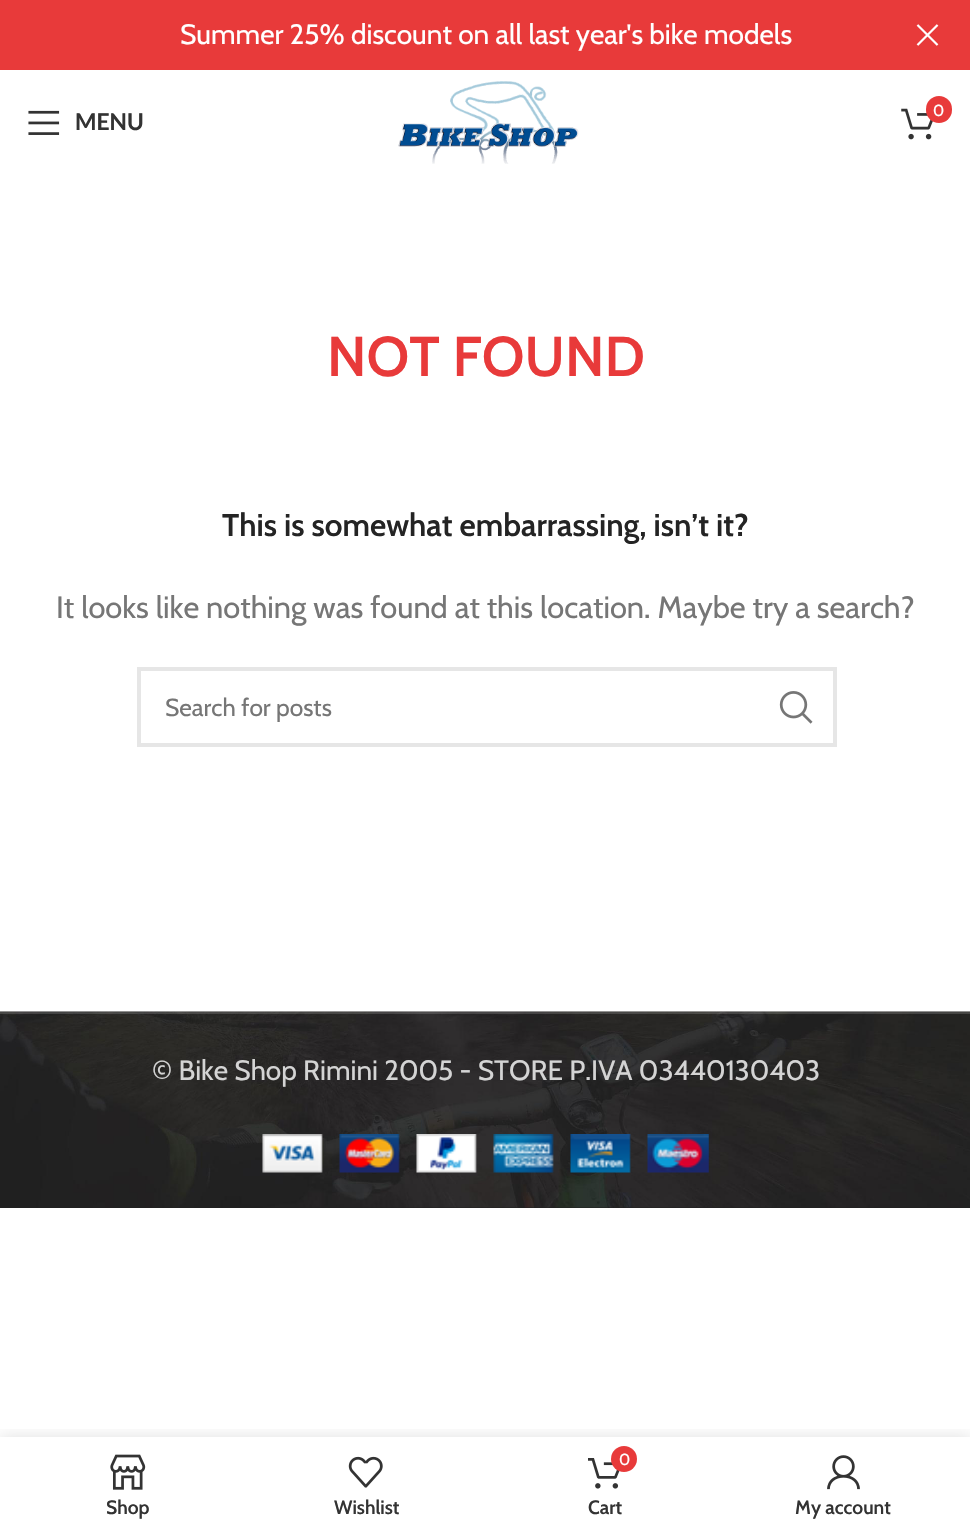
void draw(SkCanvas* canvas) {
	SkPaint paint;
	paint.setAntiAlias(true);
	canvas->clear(0xffffffff);
	paint.setColor(0xffe83a3a);
	canvas->drawRect(SkRect::MakeXYWH(0, 0, 970, 70), paint);
	SkFont f1(fontMgr->matchFamilyStyle("Cabin", SkFontStyle::Normal()), 28);
	f1.setSubpixel(true);
	paint.setColor(0xffffffff);
	canvas->drawString("Summer 25% discount on all last year's bike models", 180, 44, f1, paint);
	canvas->drawImageRect(SkImages::DeferredFromEncodedData(SkData::MakeFromFileName("img1.png")), SkRect::MakeXYWH(916, 24, 23, 22), SkSamplingOptions());
	canvas->drawImageRect(SkImages::DeferredFromEncodedData(SkData::MakeFromFileName("img2.png")), SkRect::MakeXYWH(398, 81, 181, 83), SkSamplingOptions());
	canvas->drawImageRect(SkImages::DeferredFromEncodedData(SkData::MakeFromFileName("img3.png")), SkRect::MakeXYWH(901, 108, 32, 32), SkSamplingOptions());
	paint.setColor(0xffe83a3a);
	canvas->drawRoundRect(SkRect::MakeXYWH(926, 96, 26, 27), 13, 13, paint);
	SkFont f2(fontMgr->matchFamilyStyle("Cabin", SkFontStyle::Normal()), 16);
	f2.setSubpixel(true);
	paint.setColor(0xffffffff);
	canvas->drawString("0", 933, 116, f2, paint);
	canvas->drawImageRect(SkImages::DeferredFromEncodedData(SkData::MakeFromFileName("img4.png")), SkRect::MakeXYWH(28, 110, 32, 25), SkSamplingOptions());
	SkFont f3(fontMgr->matchFamilyStyle("Lato", SkFontStyle::Bold()), 23);
	f3.setSubpixel(true);
	paint.setColor(0xff333333);
	canvas->drawString("MENU", 75, 130, f3, paint);
	SkFont f4(fontMgr->matchFamilyStyle("Cabin", SkFontStyle(600, SkFontStyle::kNormal_Width, SkFontStyle::kUpright_Slant)), 56);
	f4.setSubpixel(true);
	paint.setColor(0xffe83a3a);
	canvas->drawString("NOT FOUND", 327, 376, f4, paint);
	SkFont f5(fontMgr->matchFamilyStyle("Cabin", SkFontStyle(600, SkFontStyle::kNormal_Width, SkFontStyle::kUpright_Slant)), 31.5);
	f5.setSubpixel(true);
	paint.setColor(0xff242424);
	canvas->drawString("This is somewhat embarrassing, isn’t it?", 222, 536, f5, paint);
	SkFont f6(fontMgr->matchFamilyStyle("Cabin", SkFontStyle::Normal()), 30.8);
	f6.setSubpixel(true);
	paint.setColor(0xff767676);
	canvas->drawString("It looks like nothing was found at this location. Maybe try a search?", 56, 618, f6, paint);
	paint.setStroke(true);
	paint.setStrokeWidth(4);
	paint.setColor(0xffe6e6e6);
	canvas->drawRect(SkRect::MakeXYWH(139, 669, 696, 76), paint);
	SkFont f7(fontMgr->matchFamilyStyle("Cabin", SkFontStyle::Normal()), 24.5);
	f7.setSubpixel(true);
	paint.setStroke(false);
	paint.setColor(0xff767676);
	canvas->drawString("Search for posts", 165, 716, f7, paint);
	canvas->drawImageRect(SkImages::DeferredFromEncodedData(SkData::MakeFromFileName("img5.png")), SkRect::MakeXYWH(779, 691, 34, 33), SkSamplingOptions());
	paint.setColor(0xff202020);
	canvas->drawRect(SkRect::MakeXYWH(0, 1207, 970, 1), paint);
	canvas->drawImageRect(SkImages::DeferredFromEncodedData(SkData::MakeFromFileName("img6.png")), SkRect::MakeXYWH(0, 1011, 970, 197), SkSamplingOptions());
	paint.setColor(0x26ffffff);
	canvas->drawRect(SkRect::MakeXYWH(0, 1012, 970, 2), paint);
	paint.setColor(0xffd4d4d4);
	canvas->drawString("© Bike Shop Rimini 2005 - STORE P.IVA 03440130403", 152, 1080, f1, paint);
	canvas->drawImageRect(SkImages::DeferredFromEncodedData(SkData::MakeFromFileName("img7.png")), SkRect::MakeXYWH(262, 1134, 447, 39), SkSamplingOptions());
	canvas->save();
	canvas->clipRect(SkRect::MakeXYWH(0, 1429, 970, 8));
	paint.setColor(0x1f000000);
	paint.setMaskFilter(SkMaskFilter::MakeBlur(kNormal_SkBlurStyle, 8));
	canvas->drawRect(SkRect::MakeXYWH(0, 1437, 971, 96), paint);
	paint.setMaskFilter(nullptr);
	canvas->restore();
	canvas->drawImageRect(SkImages::DeferredFromEncodedData(SkData::MakeFromFileName("img8.png")), SkRect::MakeXYWH(110, 1454, 36, 36), SkSamplingOptions());
	SkFont f8(fontMgr->matchFamilyStyle("Cabin", SkFontStyle(600, SkFontStyle::kNormal_Width, SkFontStyle::kUpright_Slant)), 19.25);
	f8.setSubpixel(true);
	paint.setColor(0xff333333);
	canvas->drawString("Shop", 106, 1514, f8, paint);
	canvas->drawImageRect(SkImages::DeferredFromEncodedData(SkData::MakeFromFileName("img9.png")), SkRect::MakeXYWH(348, 1456, 35, 32), SkSamplingOptions());
	canvas->drawString("Wishlist", 334, 1514, f8, paint);
	canvas->drawImageRect(SkImages::DeferredFromEncodedData(SkData::MakeFromFileName("img10.png")), SkRect::MakeXYWH(588, 1458, 32, 31), SkSamplingOptions());
	paint.setColor(0xffe83a3a);
	canvas->drawCircle(624, 1459, 13, paint);
	paint.setColor(0xffffffff);
	canvas->drawString("0", 619, 1465, f2, paint);
	paint.setColor(0xff333333);
	canvas->drawString("Cart", 588, 1514, f8, paint);
	canvas->drawImageRect(SkImages::DeferredFromEncodedData(SkData::MakeFromFileName("img11.png")), SkRect::MakeXYWH(827, 1455, 33, 35), SkSamplingOptions());
	canvas->drawString("My account", 795, 1514, f8, paint);
}
